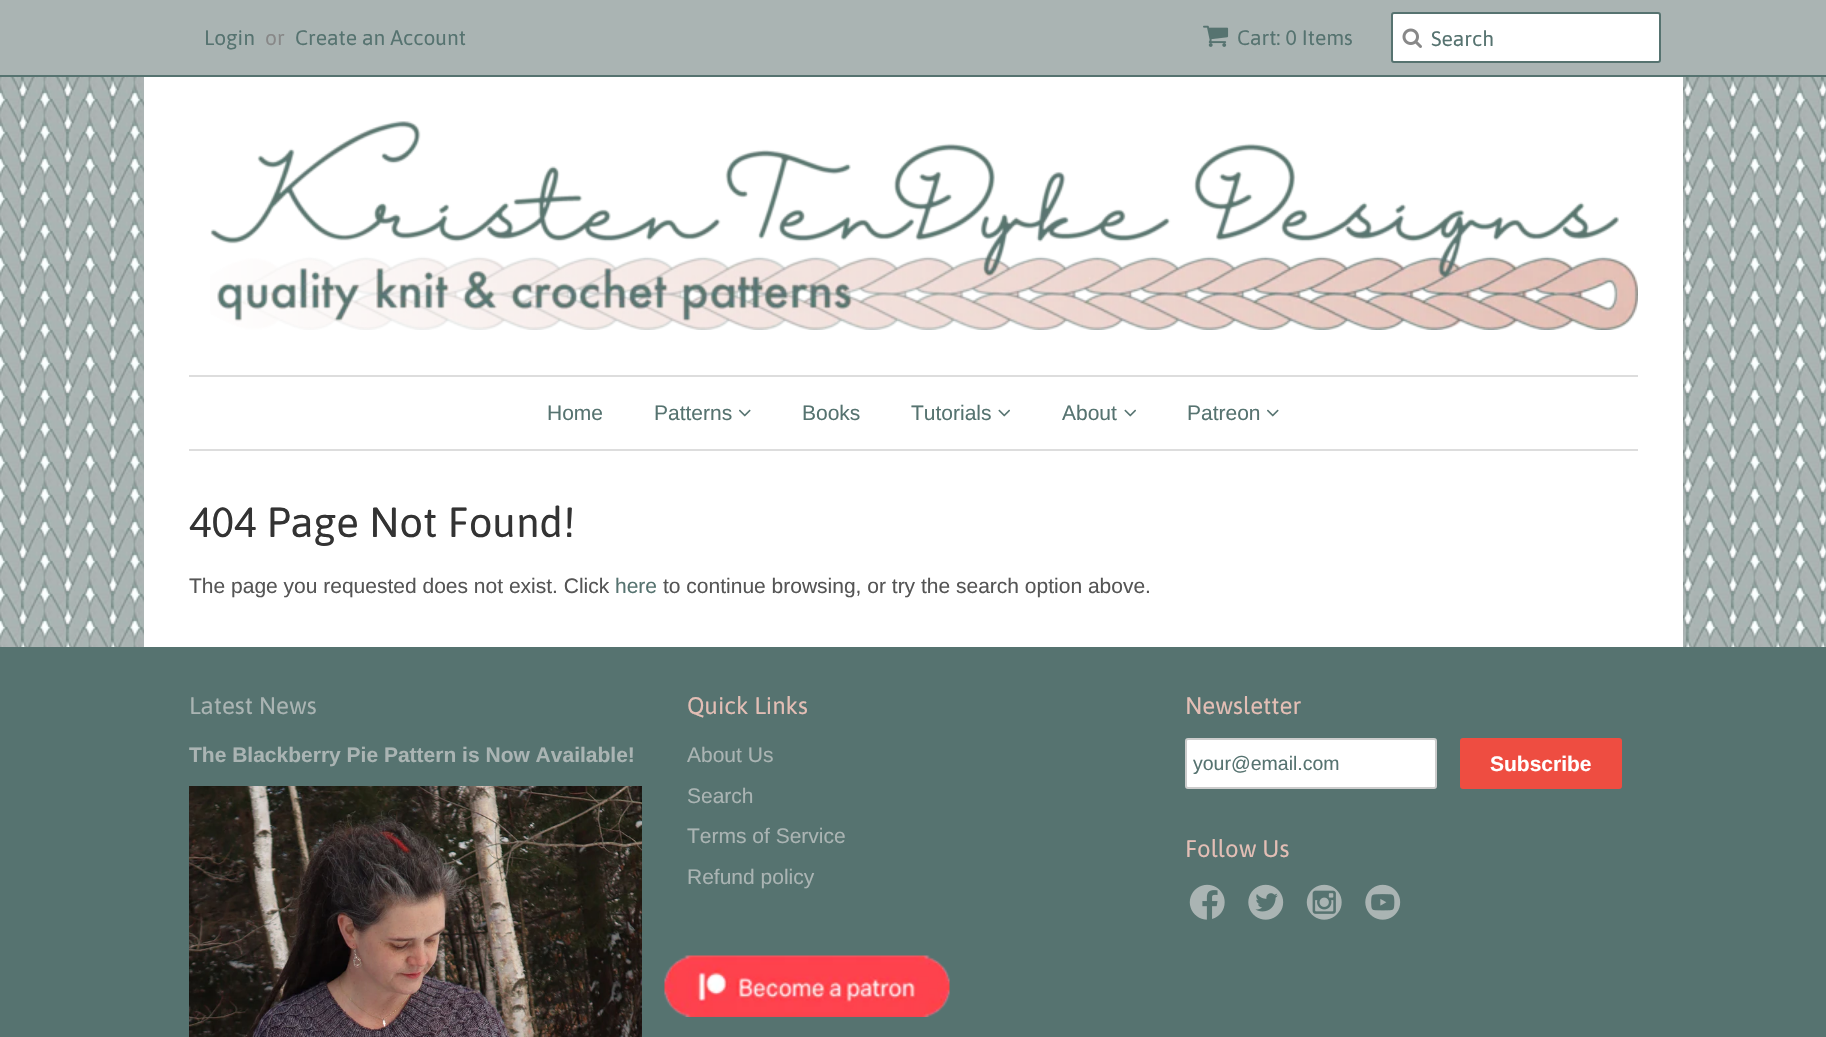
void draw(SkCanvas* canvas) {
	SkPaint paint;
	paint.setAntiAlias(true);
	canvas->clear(0xffffffff);
	canvas->drawImageRect(SkImages::DeferredFromEncodedData(SkData::MakeFromFileName("img1.png")), SkRect::MakeXYWH(0, 77, 1826, 570), SkSamplingOptions());
	paint.setColor(0xffaab4b3);
	canvas->drawRect(SkRect::MakeXYWH(0, 0, 1826, 75), paint);
	paint.setColor(0xff567370);
	canvas->drawRect(SkRect::MakeXYWH(0, 75, 1826, 2), paint);
	SkFont f1(fontMgr->matchFamilyStyle("Asap", SkFontStyle::Normal()), 21);
	f1.setSubpixel(true);
	canvas->drawString("Login", 204, 45, f1, paint);
	paint.setColor(0xff888888);
	canvas->drawString("or", 265, 45, f1, paint);
	paint.setColor(0xff567370);
	canvas->drawString("Create an Account", 295, 45, f1, paint);
	canvas->drawImageRect(SkImages::DeferredFromEncodedData(SkData::MakeFromFileName("img2.png")), SkRect::MakeXYWH(1203, 25, 26, 22), SkSamplingOptions());
	canvas->drawString("Cart: 0 Items", 1237, 45, f1, paint);
	paint.setColor(0xffffffff);
	canvas->drawRoundRect(SkRect::MakeXYWH(1392, 13, 268, 49), 2, 2, paint);
	paint.setStroke(true);
	paint.setStrokeWidth(2);
	paint.setColor(0xff567370);
	canvas->drawRoundRect(SkRect::MakeXYWH(1392, 13, 268, 49), 2, 2, paint);
	canvas->drawImageRect(SkImages::DeferredFromEncodedData(SkData::MakeFromFileName("img3.png")), SkRect::MakeXYWH(1402, 28, 20, 20), SkSamplingOptions());
	paint.setStroke(false);
	canvas->drawString("Search", 1431, 46, f1, paint);
	paint.setColor(0xffffffff);
	canvas->drawRect(SkRect::MakeXYWH(144, 77, 1539, 570), paint);
	canvas->drawImageRect(SkImages::DeferredFromEncodedData(SkData::MakeFromFileName("img4.png")), SkRect::MakeXYWH(210, 121, 1428, 209), SkSamplingOptions());
	paint.setColor(0xffdddddd);
	canvas->drawRect(SkRect::MakeXYWH(189, 375, 1449, 2), paint);
	canvas->drawRect(SkRect::MakeXYWH(189, 449, 1449, 2), paint);
	SkFont f2(fontMgr->matchFamilyStyle("Liberation Sans", SkFontStyle::Normal()), 21);
	f2.setSubpixel(true);
	paint.setColor(0xff567370);
	canvas->drawString("Home", 547, 420, f2, paint);
	canvas->drawString("Patterns", 654, 420, f2, paint);
	canvas->drawImageRect(SkImages::DeferredFromEncodedData(SkData::MakeFromFileName("img5.png")), SkRect::MakeXYWH(739, 409, 12, 8), SkSamplingOptions());
	canvas->drawString("Books", 802, 420, f2, paint);
	canvas->drawString("Tutorials", 911, 420, f2, paint);
	canvas->drawImageRect(SkImages::DeferredFromEncodedData(SkData::MakeFromFileName("img6.png")), SkRect::MakeXYWH(998, 409, 12, 8), SkSamplingOptions());
	canvas->drawString("About", 1062, 420, f2, paint);
	canvas->drawImageRect(SkImages::DeferredFromEncodedData(SkData::MakeFromFileName("img6.png")), SkRect::MakeXYWH(1124, 409, 12, 8), SkSamplingOptions());
	canvas->drawString("Patreon", 1187, 420, f2, paint);
	canvas->drawImageRect(SkImages::DeferredFromEncodedData(SkData::MakeFromFileName("img5.png")), SkRect::MakeXYWH(1267, 409, 12, 8), SkSamplingOptions());
	SkFont f3(fontMgr->matchFamilyStyle("Asap", SkFontStyle::Normal()), 42);
	f3.setSubpixel(true);
	paint.setColor(0xff333333);
	canvas->drawString("404 Page Not Found!", 189, 537, f3, paint);
	paint.setColor(0xff555555);
	canvas->drawString("The page you requested does not exist. Click", 189, 593, f2, paint);
	paint.setColor(0xff567370);
	canvas->drawString("here", 615, 593, f2, paint);
	paint.setColor(0xff555555);
	canvas->drawString("to continue browsing, or try the search option above.", 663, 593, f2, paint);
	paint.setColor(0xff567370);
	canvas->drawRect(SkRect::MakeXYWH(0, 647, 1826, 390), paint);
	SkFont f4(fontMgr->matchFamilyStyle("Asap", SkFontStyle::Normal()), 24);
	f4.setSubpixel(true);
	paint.setColor(0xffaab4b3);
	canvas->drawString("Latest News", 189, 714, f4, paint);
	SkFont f5(fontMgr->matchFamilyStyle("Liberation Sans", SkFontStyle::Bold()), 21);
	f5.setSubpixel(true);
	canvas->drawString("The Blackberry Pie Pattern is Now Available!", 189, 762, f5, paint);
	canvas->drawImageRect(SkImages::DeferredFromEncodedData(SkData::MakeFromFileName("img7.png")), SkRect::MakeXYWH(189, 786, 453, 251), SkSamplingOptions());
	paint.setColor(0xffe3beb5);
	canvas->drawString("Quick Links", 687, 714, f4, paint);
	paint.setColor(0xffaab4b3);
	canvas->drawString("About Us", 687, 762, f2, paint);
	canvas->drawString("Search", 687, 803, f2, paint);
	canvas->drawString("Terms of Service", 687, 843, f2, paint);
	canvas->drawString("Refund policy", 687, 884, f2, paint);
	paint.setColor(0xffe3beb5);
	canvas->drawString("Newsletter", 1185, 714, f4, paint);
	paint.setColor(0xffffffff);
	canvas->drawRoundRect(SkRect::MakeXYWH(1186, 739, 250, 49), 2, 2, paint);
	paint.setStroke(true);
	paint.setColor(0xffcccccc);
	canvas->drawRoundRect(SkRect::MakeXYWH(1186, 739, 250, 49), 2, 2, paint);
	SkFont f6(fontMgr->matchFamilyStyle("Liberation Sans", SkFontStyle::Normal()), 19.5);
	f6.setSubpixel(true);
	paint.setStroke(false);
	paint.setColor(0xff567370);
	canvas->drawString("your@email.com", 1193, 770, f6, paint);
	paint.setColor(0xffee4d41);
	canvas->drawRoundRect(SkRect::MakeXYWH(1460, 738, 162, 51), 3, 3, paint);
	paint.setColor(0xffffffff);
	canvas->drawString("Subscribe", 1490, 771, f5, paint);
	paint.setColor(0xffe3beb5);
	canvas->drawString("Follow Us", 1185, 857, f4, paint);
	canvas->drawImageRect(SkImages::DeferredFromEncodedData(SkData::MakeFromFileName("img8.png")), SkRect::MakeXYWH(1189, 884, 36, 36), SkSamplingOptions());
	canvas->drawImageRect(SkImages::DeferredFromEncodedData(SkData::MakeFromFileName("img9.png")), SkRect::MakeXYWH(1248, 884, 36, 36), SkSamplingOptions());
	canvas->drawImageRect(SkImages::DeferredFromEncodedData(SkData::MakeFromFileName("img10.png")), SkRect::MakeXYWH(1306, 884, 36, 36), SkSamplingOptions());
	canvas->drawImageRect(SkImages::DeferredFromEncodedData(SkData::MakeFromFileName("img11.png")), SkRect::MakeXYWH(1365, 884, 36, 36), SkSamplingOptions());
	canvas->drawImageRect(SkImages::DeferredFromEncodedData(SkData::MakeFromFileName("img12.png")), SkRect::MakeXYWH(664, 955, 286, 62), SkSamplingOptions());
}
